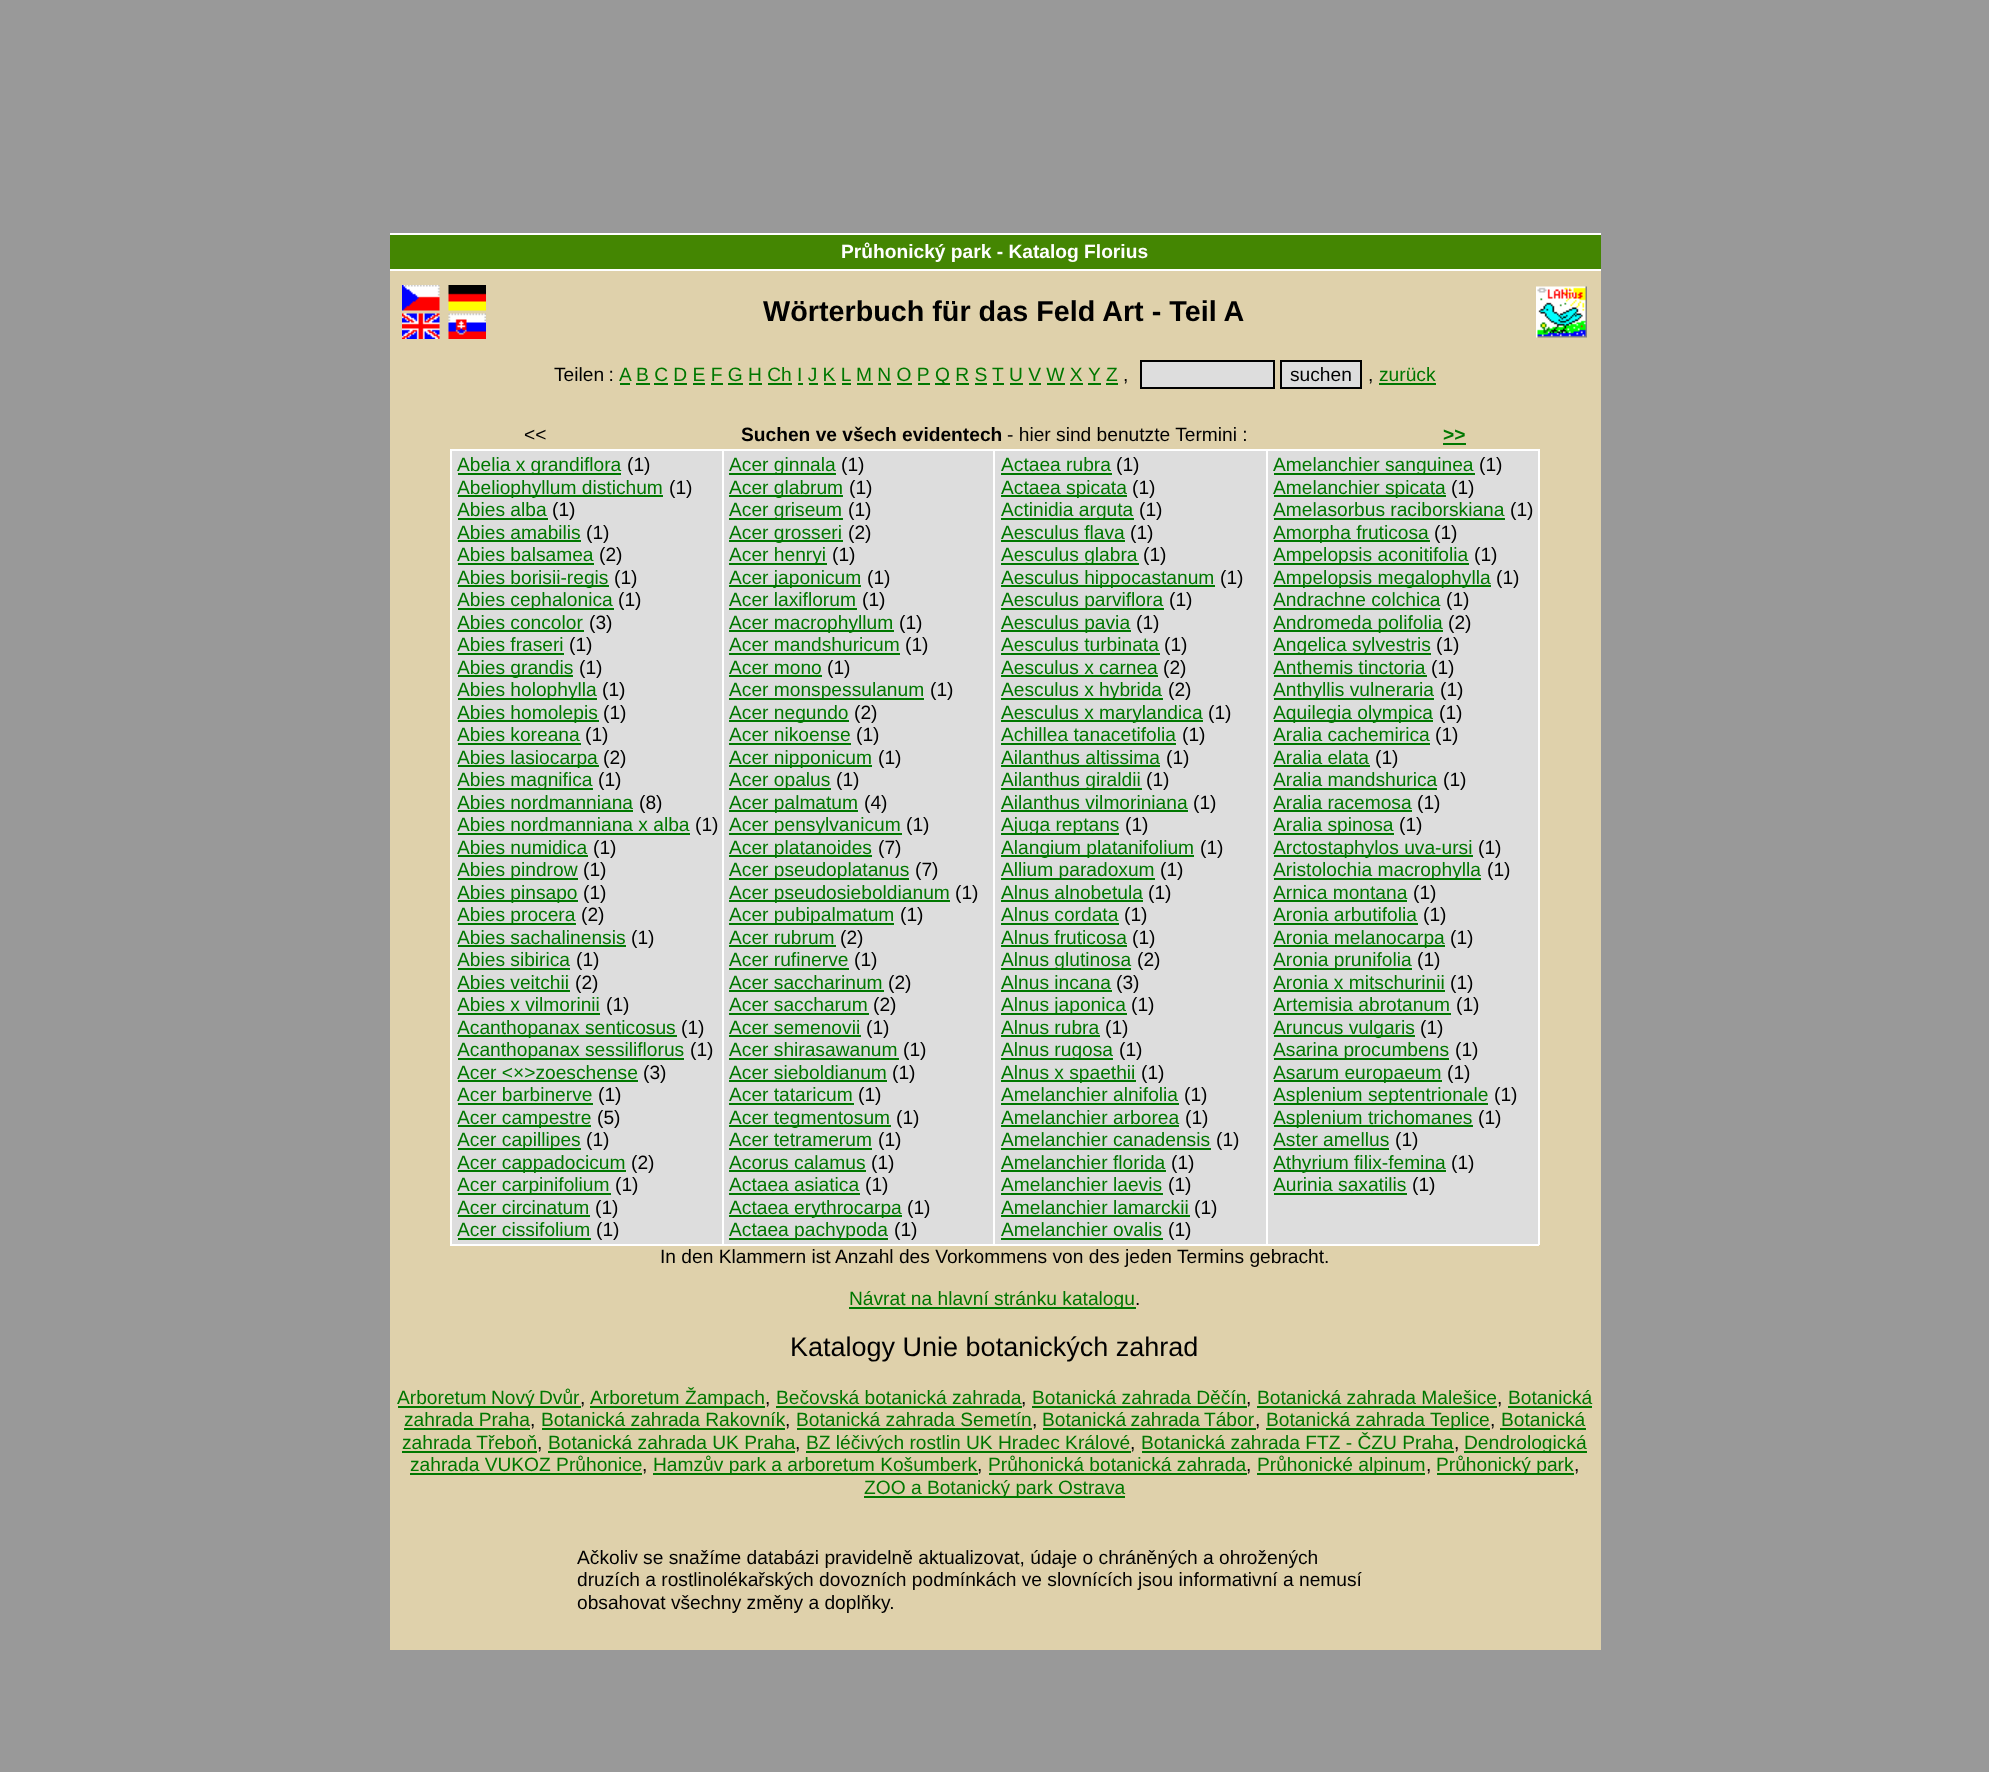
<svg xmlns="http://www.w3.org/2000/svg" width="1989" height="1772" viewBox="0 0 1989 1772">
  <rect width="100%" height="100%" fill="#999"/>
  <path d="M390 271h1211v1379H390z" fill="#dfd1ab"/>
  <path d="M390 235h1211v34H390z" fill="#448602"/>
  <path d="M390 233h1211v2H390z" fill="#fff"/>
  <path d="M390 269h1211v2H390z" fill="#fff"/>
  <image x="402" y="285" width="38" height="26" href="img/1.png"/>
  <image x="402" y="313" width="38" height="26" href="img/2.png"/>
  <image x="448" y="285" width="38" height="26" href="img/3.png"/>
  <image x="448" y="313" width="38" height="26" href="img/4.png"/>
  <image x="1536" y="286" width="51" height="52" href="img/5.png"/>
  <path d="M620 383h10v2H620z" fill="#070"/>
  <path d="M636 383h14v2H636z" fill="#070"/>
  <path d="M857 383h16v2H857z" fill="#070"/>
  <path d="M935 383h15v2H935z" fill="#070"/>
  <path d="M993 383h11v2H993z" fill="#070"/>
  <path d="M1010 383h13v2H1010z" fill="#070"/>
  <path d="M1088 383h13v2H1088z" fill="#070"/>
  <path d="M1106 383h12v2H1106z" fill="#070"/>
  <path d="M654 383h14v2H654z" fill="#070"/>
  <path d="M674 383h13v2H674z" fill="#070"/>
  <path d="M693 383h12v2H693z" fill="#070"/>
  <path d="M711 383h12v2H711z" fill="#070"/>
  <path d="M728 383h15v2H728z" fill="#070"/>
  <path d="M749 383h13v2H749z" fill="#070"/>
  <path d="M768 383h24v2H768z" fill="#070"/>
  <path d="M798 383h5v2H798z" fill="#070"/>
  <path d="M809 383h9v2H809z" fill="#070"/>
  <path d="M824 383h12v2H824z" fill="#070"/>
  <path d="M842 383h9v2H842z" fill="#070"/>
  <path d="M878 383h13v2H878z" fill="#070"/>
  <path d="M897 383h15v2H897z" fill="#070"/>
  <path d="M918 383h12v2H918z" fill="#070"/>
  <path d="M956 383h13v2H956z" fill="#070"/>
  <path d="M975 383h12v2H975z" fill="#070"/>
  <path d="M1029 383h12v2H1029z" fill="#070"/>
  <path d="M1047 383h18v2H1047z" fill="#070"/>
  <path d="M1070 383h13v2H1070z" fill="#070"/>
  <path d="M1141 361h133v27H1141z" fill="#ddd" stroke="#000" stroke-width="2"/>
  <path d="M1281 361h80v27H1281z" fill="#ddd" stroke="#000" stroke-width="2"/>
  <path d="M1379 383h57v2H1379z" fill="#070"/>
  <path d="M1443 443h23v2H1443z" fill="#070"/>
  <path d="M452 451h1086v793H452z" fill="#ddd"/>
  <path d="M1538 449h2v796H1538z" fill="#fff"/>
  <path d="M450 1244h1089v2H450z" fill="#fff"/>
  <path d="M450 449h1088v2H450z" fill="#fff"/>
  <path d="M450 449h2v795H450z" fill="#fff"/>
  <path d="M458 473h163v2H458z" fill="#070"/>
  <path d="M458 495h205v2H458z" fill="#070"/>
  <path d="M458 518h90v2H458z" fill="#070"/>
  <path d="M458 540h123v2H458z" fill="#070"/>
  <path d="M458 563h136v2H458z" fill="#070"/>
  <path d="M458 585h151v2H458z" fill="#070"/>
  <path d="M458 608h156v2H458z" fill="#070"/>
  <path d="M458 630h126v2H458z" fill="#070"/>
  <path d="M458 653h106v2H458z" fill="#070"/>
  <path d="M458 675h115v2H458z" fill="#070"/>
  <path d="M458 698h139v2H458z" fill="#070"/>
  <path d="M458 720h141v2H458z" fill="#070"/>
  <path d="M458 743h123v2H458z" fill="#070"/>
  <path d="M458 765h141v2H458z" fill="#070"/>
  <path d="M458 788h135v2H458z" fill="#070"/>
  <path d="M458 810h175v2H458z" fill="#070"/>
  <path d="M458 833h232v2H458z" fill="#070"/>
  <path d="M458 855h130v2H458z" fill="#070"/>
  <path d="M458 878h120v2H458z" fill="#070"/>
  <path d="M458 900h120v2H458z" fill="#070"/>
  <path d="M458 923h118v2H458z" fill="#070"/>
  <path d="M458 945h168v2H458z" fill="#070"/>
  <path d="M458 968h112v2H458z" fill="#070"/>
  <path d="M458 990h112v2H458z" fill="#070"/>
  <path d="M458 1013h142v2H458z" fill="#070"/>
  <path d="M458 1035h219v2H458z" fill="#070"/>
  <path d="M458 1058h226v2H458z" fill="#070"/>
  <path d="M458 1080h180v2H458z" fill="#070"/>
  <path d="M458 1103h135v2H458z" fill="#070"/>
  <path d="M458 1125h133v2H458z" fill="#070"/>
  <path d="M458 1148h123v2H458z" fill="#070"/>
  <path d="M458 1170h168v2H458z" fill="#070"/>
  <path d="M458 1193h153v2H458z" fill="#070"/>
  <path d="M458 1215h132v2H458z" fill="#070"/>
  <path d="M458 1238h133v2H458z" fill="#070"/>
  <path d="M722 449h2v795H722z" fill="#fff"/>
  <path d="M729 473h107v2H729z" fill="#070"/>
  <path d="M729 495h114v2H729z" fill="#070"/>
  <path d="M729 518h114v2H729z" fill="#070"/>
  <path d="M729 540h114v2H729z" fill="#070"/>
  <path d="M729 563h98v2H729z" fill="#070"/>
  <path d="M729 585h132v2H729z" fill="#070"/>
  <path d="M729 608h128v2H729z" fill="#070"/>
  <path d="M729 630h165v2H729z" fill="#070"/>
  <path d="M729 653h171v2H729z" fill="#070"/>
  <path d="M729 675h93v2H729z" fill="#070"/>
  <path d="M729 698h195v2H729z" fill="#070"/>
  <path d="M729 720h120v2H729z" fill="#070"/>
  <path d="M729 743h122v2H729z" fill="#070"/>
  <path d="M729 765h143v2H729z" fill="#070"/>
  <path d="M729 788h102v2H729z" fill="#070"/>
  <path d="M729 810h129v2H729z" fill="#070"/>
  <path d="M729 833h173v2H729z" fill="#070"/>
  <path d="M729 855h143v2H729z" fill="#070"/>
  <path d="M729 878h180v2H729z" fill="#070"/>
  <path d="M729 900h221v2H729z" fill="#070"/>
  <path d="M729 923h165v2H729z" fill="#070"/>
  <path d="M729 945h107v2H729z" fill="#070"/>
  <path d="M729 968h120v2H729z" fill="#070"/>
  <path d="M729 990h155v2H729z" fill="#070"/>
  <path d="M729 1013h140v2H729z" fill="#070"/>
  <path d="M729 1035h132v2H729z" fill="#070"/>
  <path d="M729 1058h170v2H729z" fill="#070"/>
  <path d="M729 1080h158v2H729z" fill="#070"/>
  <path d="M729 1103h125v2H729z" fill="#070"/>
  <path d="M729 1125h162v2H729z" fill="#070"/>
  <path d="M729 1148h143v2H729z" fill="#070"/>
  <path d="M729 1170h137v2H729z" fill="#070"/>
  <path d="M729 1193h131v2H729z" fill="#070"/>
  <path d="M729 1215h173v2H729z" fill="#070"/>
  <path d="M729 1238h159v2H729z" fill="#070"/>
  <path d="M993 449h2v795H993z" fill="#fff"/>
  <path d="M1001 473h111v2H1001z" fill="#070"/>
  <path d="M1001 495h126v2H1001z" fill="#070"/>
  <path d="M1001 518h133v2H1001z" fill="#070"/>
  <path d="M1001 540h124v2H1001z" fill="#070"/>
  <path d="M1001 563h138v2H1001z" fill="#070"/>
  <path d="M1001 585h214v2H1001z" fill="#070"/>
  <path d="M1001 608h163v2H1001z" fill="#070"/>
  <path d="M1001 630h130v2H1001z" fill="#070"/>
  <path d="M1001 653h159v2H1001z" fill="#070"/>
  <path d="M1001 675h157v2H1001z" fill="#070"/>
  <path d="M1001 698h162v2H1001z" fill="#070"/>
  <path d="M1001 720h202v2H1001z" fill="#070"/>
  <path d="M1001 743h175v2H1001z" fill="#070"/>
  <path d="M1001 765h159v2H1001z" fill="#070"/>
  <path d="M1001 788h141v2H1001z" fill="#070"/>
  <path d="M1001 810h187v2H1001z" fill="#070"/>
  <path d="M1001 833h118v2H1001z" fill="#070"/>
  <path d="M1001 855h193v2H1001z" fill="#070"/>
  <path d="M1001 878h154v2H1001z" fill="#070"/>
  <path d="M1001 900h142v2H1001z" fill="#070"/>
  <path d="M1001 923h118v2H1001z" fill="#070"/>
  <path d="M1001 945h126v2H1001z" fill="#070"/>
  <path d="M1001 968h130v2H1001z" fill="#070"/>
  <path d="M1001 990h111v2H1001z" fill="#070"/>
  <path d="M1001 1013h126v2H1001z" fill="#070"/>
  <path d="M1001 1035h99v2H1001z" fill="#070"/>
  <path d="M1001 1058h112v2H1001z" fill="#070"/>
  <path d="M1001 1080h135v2H1001z" fill="#070"/>
  <path d="M1001 1103h178v2H1001z" fill="#070"/>
  <path d="M1001 1125h178v2H1001z" fill="#070"/>
  <path d="M1001 1148h210v2H1001z" fill="#070"/>
  <path d="M1001 1170h165v2H1001z" fill="#070"/>
  <path d="M1001 1193h162v2H1001z" fill="#070"/>
  <path d="M1001 1215h189v2H1001z" fill="#070"/>
  <path d="M1001 1238h162v2H1001z" fill="#070"/>
  <path d="M1266 449h2v795H1266z" fill="#fff"/>
  <path d="M1274 473h201v2H1274z" fill="#070"/>
  <path d="M1274 495h172v2H1274z" fill="#070"/>
  <path d="M1274 518h231v2H1274z" fill="#070"/>
  <path d="M1274 540h156v2H1274z" fill="#070"/>
  <path d="M1274 563h195v2H1274z" fill="#070"/>
  <path d="M1274 585h217v2H1274z" fill="#070"/>
  <path d="M1274 608h166v2H1274z" fill="#070"/>
  <path d="M1274 630h169v2H1274z" fill="#070"/>
  <path d="M1274 653h157v2H1274z" fill="#070"/>
  <path d="M1274 675h153v2H1274z" fill="#070"/>
  <path d="M1274 698h160v2H1274z" fill="#070"/>
  <path d="M1274 720h159v2H1274z" fill="#070"/>
  <path d="M1274 743h156v2H1274z" fill="#070"/>
  <path d="M1274 765h96v2H1274z" fill="#070"/>
  <path d="M1274 788h163v2H1274z" fill="#070"/>
  <path d="M1274 810h138v2H1274z" fill="#070"/>
  <path d="M1274 833h120v2H1274z" fill="#070"/>
  <path d="M1274 855h199v2H1274z" fill="#070"/>
  <path d="M1274 878h207v2H1274z" fill="#070"/>
  <path d="M1274 900h133v2H1274z" fill="#070"/>
  <path d="M1274 923h144v2H1274z" fill="#070"/>
  <path d="M1274 945h171v2H1274z" fill="#070"/>
  <path d="M1274 968h138v2H1274z" fill="#070"/>
  <path d="M1274 990h171v2H1274z" fill="#070"/>
  <path d="M1274 1013h177v2H1274z" fill="#070"/>
  <path d="M1274 1035h141v2H1274z" fill="#070"/>
  <path d="M1274 1058h175v2H1274z" fill="#070"/>
  <path d="M1274 1080h168v2H1274z" fill="#070"/>
  <path d="M1274 1103h214v2H1274z" fill="#070"/>
  <path d="M1274 1125h199v2H1274z" fill="#070"/>
  <path d="M1274 1148h115v2H1274z" fill="#070"/>
  <path d="M1274 1170h172v2H1274z" fill="#070"/>
  <path d="M1274 1193h133v2H1274z" fill="#070"/>
  <path d="M849 1307h287v2H849z" fill="#070"/>
  <path d="M398 1406h183v2H398z" fill="#070"/>
  <path d="M590 1406h175v2H590z" fill="#070"/>
  <path d="M776 1406h246v2H776z" fill="#070"/>
  <path d="M1032 1406h215v2H1032z" fill="#070"/>
  <path d="M1257 1406h240v2H1257z" fill="#070"/>
  <path d="M1508 1406h84v2H1508z" fill="#070"/>
  <path d="M404 1428h126v2H404z" fill="#070"/>
  <path d="M542 1428h243v2H542z" fill="#070"/>
  <path d="M797 1428h235v2H797z" fill="#070"/>
  <path d="M1043 1428h213v2H1043z" fill="#070"/>
  <path d="M1266 1428h224v2H1266z" fill="#070"/>
  <path d="M1500 1428h86v2H1500z" fill="#070"/>
  <path d="M402 1451h135v2H402z" fill="#070"/>
  <path d="M548 1451h247v2H548z" fill="#070"/>
  <path d="M806 1451h325v2H806z" fill="#070"/>
  <path d="M1142 1451h312v2H1142z" fill="#070"/>
  <path d="M1464 1451h123v2H1464z" fill="#070"/>
  <path d="M410 1473h232v2H410z" fill="#070"/>
  <path d="M653 1473h325v2H653z" fill="#070"/>
  <path d="M989 1473h258v2H989z" fill="#070"/>
  <path d="M1257 1473h168v2H1257z" fill="#070"/>
  <path d="M1437 1473h137v2H1437z" fill="#070"/>
  <path d="M864 1496h261v2H864z" fill="#070"/>
  <text x="841" y="258" font-family="Liberation Sans" font-size="19.2" font-weight="bold" fill="#fff">Průhonický park - Katalog Florius</text>
  <text x="763" y="321" font-family="Liberation Sans" font-size="28.75" font-weight="bold" fill="#000">Wörterbuch für das Feld Art - Teil A</text>
  <text x="554" y="381" word-spacing="-1" font-family="Liberation Sans" font-size="19.2" fill="#000">Teilen :</text>
  <g font-family="Liberation Sans" font-size="19.2" fill="#070">
    <text x="619" y="381">A</text>
    <text x="636" y="381">B C D E F G H Ch I J K L</text>
    <text x="856" y="381">M N O P</text>
    <text x="935" y="381">Q R S</text>
    <text x="992" y="381">T</text>
    <text x="1009" y="381">U V W X</text>
    <text x="1088" y="381">Y</text>
    <text x="1106" y="381">Z</text>
  </g>
  <g font-family="Liberation Sans" font-size="19.2" fill="#000">
    <text x="1123" y="381">,</text>
    <text x="1290" y="381">suchen</text>
    <text x="1368" y="381">,</text>
  </g>
  <text x="1379" y="381" font-family="Liberation Sans" font-size="19.2" fill="#070">zurück</text>
  <text x="524" y="441" font-family="Liberation Sans" font-size="19.2" fill="#000">&lt;&lt;</text>
  <text x="741" y="441" font-family="Liberation Sans" font-size="19.2" font-weight="bold" fill="#000">Suchen ve všech evidentech</text>
  <text x="1007" y="441" font-family="Liberation Sans" font-size="19.2" fill="#000">- hier sind benutzte Termini :</text>
  <text x="1443" y="441" font-family="Liberation Sans" font-size="19.2" font-weight="bold" fill="#070">&gt;&gt;</text>
  <text x="457" y="471" font-family="Liberation Sans" font-size="19.2" fill="#070">Abelia x grandiflora</text>
  <text x="627" y="471" font-family="Liberation Sans" font-size="19.2" fill="#000">(1)</text>
  <text x="457" y="494" font-family="Liberation Sans" font-size="19.2" fill="#070">Abeliophyllum distichum</text>
  <text x="669" y="494" font-family="Liberation Sans" font-size="19.2" fill="#000">(1)</text>
  <text x="457" y="516" font-family="Liberation Sans" font-size="19.2" fill="#070">Abies alba</text>
  <text x="552" y="516" font-family="Liberation Sans" font-size="19.2" fill="#000">(1)</text>
  <text x="457" y="539" font-family="Liberation Sans" font-size="19.2" fill="#070">Abies amabilis</text>
  <text x="586" y="539" font-family="Liberation Sans" font-size="19.2" fill="#000">(1)</text>
  <text x="457" y="561" font-family="Liberation Sans" font-size="19.2" fill="#070">Abies balsamea</text>
  <text x="599" y="561" font-family="Liberation Sans" font-size="19.2" fill="#000">(2)</text>
  <text x="457" y="584" font-family="Liberation Sans" font-size="19.2" fill="#070">Abies borisii-regis</text>
  <text x="614" y="584" font-family="Liberation Sans" font-size="19.2" fill="#000">(1)</text>
  <text x="457" y="606" font-family="Liberation Sans" font-size="19.2" fill="#070">Abies cephalonica</text>
  <text x="618" y="606" font-family="Liberation Sans" font-size="19.2" fill="#000">(1)</text>
  <text x="457" y="629" font-family="Liberation Sans" font-size="19.2" fill="#070">Abies concolor</text>
  <text x="589" y="629" font-family="Liberation Sans" font-size="19.2" fill="#000">(3)</text>
  <text x="457" y="651" font-family="Liberation Sans" font-size="19.2" fill="#070">Abies fraseri</text>
  <text x="569" y="651" font-family="Liberation Sans" font-size="19.2" fill="#000">(1)</text>
  <text x="457" y="674" font-family="Liberation Sans" font-size="19.2" fill="#070">Abies grandis</text>
  <text x="579" y="674" font-family="Liberation Sans" font-size="19.2" fill="#000">(1)</text>
  <text x="457" y="696" font-family="Liberation Sans" font-size="19.2" fill="#070">Abies holophylla</text>
  <text x="602" y="696" font-family="Liberation Sans" font-size="19.2" fill="#000">(1)</text>
  <text x="457" y="719" font-family="Liberation Sans" font-size="19.2" fill="#070">Abies homolepis</text>
  <text x="603" y="719" font-family="Liberation Sans" font-size="19.2" fill="#000">(1)</text>
  <text x="457" y="741" font-family="Liberation Sans" font-size="19.2" fill="#070">Abies koreana</text>
  <text x="585" y="741" font-family="Liberation Sans" font-size="19.2" fill="#000">(1)</text>
  <text x="457" y="764" font-family="Liberation Sans" font-size="19.2" fill="#070">Abies lasiocarpa</text>
  <text x="603" y="764" font-family="Liberation Sans" font-size="19.2" fill="#000">(2)</text>
  <text x="457" y="786" font-family="Liberation Sans" font-size="19.2" fill="#070">Abies magnifica</text>
  <text x="598" y="786" font-family="Liberation Sans" font-size="19.2" fill="#000">(1)</text>
  <text x="457" y="809" font-family="Liberation Sans" font-size="19.2" fill="#070">Abies nordmanniana</text>
  <text x="639" y="809" font-family="Liberation Sans" font-size="19.2" fill="#000">(8)</text>
  <text x="457" y="831" font-family="Liberation Sans" font-size="19.2" fill="#070">Abies nordmanniana x alba</text>
  <text x="695" y="831" font-family="Liberation Sans" font-size="19.2" fill="#000">(1)</text>
  <text x="457" y="854" font-family="Liberation Sans" font-size="19.2" fill="#070">Abies numidica</text>
  <text x="593" y="854" font-family="Liberation Sans" font-size="19.2" fill="#000">(1)</text>
  <text x="457" y="876" font-family="Liberation Sans" font-size="19.2" fill="#070">Abies pindrow</text>
  <text x="583" y="876" font-family="Liberation Sans" font-size="19.2" fill="#000">(1)</text>
  <text x="457" y="899" font-family="Liberation Sans" font-size="19.2" fill="#070">Abies pinsapo</text>
  <text x="583" y="899" font-family="Liberation Sans" font-size="19.2" fill="#000">(1)</text>
  <text x="457" y="921" font-family="Liberation Sans" font-size="19.2" fill="#070">Abies procera</text>
  <text x="581" y="921" font-family="Liberation Sans" font-size="19.2" fill="#000">(2)</text>
  <text x="457" y="944" font-family="Liberation Sans" font-size="19.2" fill="#070">Abies sachalinensis</text>
  <text x="631" y="944" font-family="Liberation Sans" font-size="19.2" fill="#000">(1)</text>
  <text x="457" y="966" font-family="Liberation Sans" font-size="19.2" fill="#070">Abies sibirica</text>
  <text x="576" y="966" font-family="Liberation Sans" font-size="19.2" fill="#000">(1)</text>
  <text x="457" y="989" font-family="Liberation Sans" font-size="19.2" fill="#070">Abies veitchii</text>
  <text x="575" y="989" font-family="Liberation Sans" font-size="19.2" fill="#000">(2)</text>
  <text x="457" y="1011" font-family="Liberation Sans" font-size="19.2" fill="#070">Abies x vilmorinii</text>
  <text x="606" y="1011" font-family="Liberation Sans" font-size="19.2" fill="#000">(1)</text>
  <text x="457" y="1034" font-family="Liberation Sans" font-size="19.2" fill="#070">Acanthopanax senticosus</text>
  <text x="681" y="1034" font-family="Liberation Sans" font-size="19.2" fill="#000">(1)</text>
  <text x="457" y="1056" font-family="Liberation Sans" font-size="19.2" fill="#070">Acanthopanax sessiliflorus</text>
  <text x="690" y="1056" font-family="Liberation Sans" font-size="19.2" fill="#000">(1)</text>
  <text x="457" y="1079" font-family="Liberation Sans" font-size="19.2" fill="#070">Acer &lt;×&gt;zoeschense</text>
  <text x="643" y="1079" font-family="Liberation Sans" font-size="19.2" fill="#000">(3)</text>
  <text x="457" y="1101" font-family="Liberation Sans" font-size="19.2" fill="#070">Acer barbinerve</text>
  <text x="598" y="1101" font-family="Liberation Sans" font-size="19.2" fill="#000">(1)</text>
  <text x="457" y="1124" font-family="Liberation Sans" font-size="19.2" fill="#070">Acer campestre</text>
  <text x="597" y="1124" font-family="Liberation Sans" font-size="19.2" fill="#000">(5)</text>
  <text x="457" y="1146" font-family="Liberation Sans" font-size="19.2" fill="#070">Acer capillipes</text>
  <text x="586" y="1146" font-family="Liberation Sans" font-size="19.2" fill="#000">(1)</text>
  <text x="457" y="1169" font-family="Liberation Sans" font-size="19.2" fill="#070">Acer cappadocicum</text>
  <text x="631" y="1169" font-family="Liberation Sans" font-size="19.2" fill="#000">(2)</text>
  <text x="457" y="1191" font-family="Liberation Sans" font-size="19.2" fill="#070">Acer carpinifolium</text>
  <text x="615" y="1191" font-family="Liberation Sans" font-size="19.2" fill="#000">(1)</text>
  <text x="457" y="1214" font-family="Liberation Sans" font-size="19.2" fill="#070">Acer circinatum</text>
  <text x="595" y="1214" font-family="Liberation Sans" font-size="19.2" fill="#000">(1)</text>
  <text x="457" y="1236" font-family="Liberation Sans" font-size="19.2" fill="#070">Acer cissifolium</text>
  <text x="596" y="1236" font-family="Liberation Sans" font-size="19.2" fill="#000">(1)</text>
  <text x="729" y="471" font-family="Liberation Sans" font-size="19.2" fill="#070">Acer ginnala</text>
  <text x="841" y="471" font-family="Liberation Sans" font-size="19.2" fill="#000">(1)</text>
  <text x="729" y="494" font-family="Liberation Sans" font-size="19.2" fill="#070">Acer glabrum</text>
  <text x="849" y="494" font-family="Liberation Sans" font-size="19.2" fill="#000">(1)</text>
  <text x="729" y="516" font-family="Liberation Sans" font-size="19.2" fill="#070">Acer griseum</text>
  <text x="848" y="516" font-family="Liberation Sans" font-size="19.2" fill="#000">(1)</text>
  <text x="729" y="539" font-family="Liberation Sans" font-size="19.2" fill="#070">Acer grosseri</text>
  <text x="848" y="539" font-family="Liberation Sans" font-size="19.2" fill="#000">(2)</text>
  <text x="729" y="561" font-family="Liberation Sans" font-size="19.2" fill="#070">Acer henryi</text>
  <text x="832" y="561" font-family="Liberation Sans" font-size="19.2" fill="#000">(1)</text>
  <text x="729" y="584" font-family="Liberation Sans" font-size="19.2" fill="#070">Acer japonicum</text>
  <text x="867" y="584" font-family="Liberation Sans" font-size="19.2" fill="#000">(1)</text>
  <text x="729" y="606" font-family="Liberation Sans" font-size="19.2" fill="#070">Acer laxiflorum</text>
  <text x="862" y="606" font-family="Liberation Sans" font-size="19.2" fill="#000">(1)</text>
  <text x="729" y="629" font-family="Liberation Sans" font-size="19.2" fill="#070">Acer macrophyllum</text>
  <text x="899" y="629" font-family="Liberation Sans" font-size="19.2" fill="#000">(1)</text>
  <text x="729" y="651" font-family="Liberation Sans" font-size="19.2" fill="#070">Acer mandshuricum</text>
  <text x="905" y="651" font-family="Liberation Sans" font-size="19.2" fill="#000">(1)</text>
  <text x="729" y="674" font-family="Liberation Sans" font-size="19.2" fill="#070">Acer mono</text>
  <text x="827" y="674" font-family="Liberation Sans" font-size="19.2" fill="#000">(1)</text>
  <text x="729" y="696" font-family="Liberation Sans" font-size="19.2" fill="#070">Acer monspessulanum</text>
  <text x="930" y="696" font-family="Liberation Sans" font-size="19.2" fill="#000">(1)</text>
  <text x="729" y="719" font-family="Liberation Sans" font-size="19.2" fill="#070">Acer negundo</text>
  <text x="854" y="719" font-family="Liberation Sans" font-size="19.2" fill="#000">(2)</text>
  <text x="729" y="741" font-family="Liberation Sans" font-size="19.2" fill="#070">Acer nikoense</text>
  <text x="856" y="741" font-family="Liberation Sans" font-size="19.2" fill="#000">(1)</text>
  <text x="729" y="764" font-family="Liberation Sans" font-size="19.2" fill="#070">Acer nipponicum</text>
  <text x="878" y="764" font-family="Liberation Sans" font-size="19.2" fill="#000">(1)</text>
  <text x="729" y="786" font-family="Liberation Sans" font-size="19.2" fill="#070">Acer opalus</text>
  <text x="836" y="786" font-family="Liberation Sans" font-size="19.2" fill="#000">(1)</text>
  <text x="729" y="809" font-family="Liberation Sans" font-size="19.2" fill="#070">Acer palmatum</text>
  <text x="864" y="809" font-family="Liberation Sans" font-size="19.2" fill="#000">(4)</text>
  <text x="729" y="831" font-family="Liberation Sans" font-size="19.2" fill="#070">Acer pensylvanicum</text>
  <text x="906" y="831" font-family="Liberation Sans" font-size="19.2" fill="#000">(1)</text>
  <text x="729" y="854" font-family="Liberation Sans" font-size="19.2" fill="#070">Acer platanoides</text>
  <text x="878" y="854" font-family="Liberation Sans" font-size="19.2" fill="#000">(7)</text>
  <text x="729" y="876" font-family="Liberation Sans" font-size="19.2" fill="#070">Acer pseudoplatanus</text>
  <text x="915" y="876" font-family="Liberation Sans" font-size="19.2" fill="#000">(7)</text>
  <text x="729" y="899" font-family="Liberation Sans" font-size="19.2" fill="#070">Acer pseudosieboldianum</text>
  <text x="955" y="899" font-family="Liberation Sans" font-size="19.2" fill="#000">(1)</text>
  <text x="729" y="921" font-family="Liberation Sans" font-size="19.2" fill="#070">Acer pubipalmatum</text>
  <text x="900" y="921" font-family="Liberation Sans" font-size="19.2" fill="#000">(1)</text>
  <text x="729" y="944" font-family="Liberation Sans" font-size="19.2" fill="#070">Acer rubrum</text>
  <text x="840" y="944" font-family="Liberation Sans" font-size="19.2" fill="#000">(2)</text>
  <text x="729" y="966" font-family="Liberation Sans" font-size="19.2" fill="#070">Acer rufinerve</text>
  <text x="854" y="966" font-family="Liberation Sans" font-size="19.2" fill="#000">(1)</text>
  <text x="729" y="989" font-family="Liberation Sans" font-size="19.2" fill="#070">Acer saccharinum</text>
  <text x="888" y="989" font-family="Liberation Sans" font-size="19.2" fill="#000">(2)</text>
  <text x="729" y="1011" font-family="Liberation Sans" font-size="19.2" fill="#070">Acer saccharum</text>
  <text x="873" y="1011" font-family="Liberation Sans" font-size="19.2" fill="#000">(2)</text>
  <text x="729" y="1034" font-family="Liberation Sans" font-size="19.2" fill="#070">Acer semenovii</text>
  <text x="866" y="1034" font-family="Liberation Sans" font-size="19.2" fill="#000">(1)</text>
  <text x="729" y="1056" font-family="Liberation Sans" font-size="19.2" fill="#070">Acer shirasawanum</text>
  <text x="903" y="1056" font-family="Liberation Sans" font-size="19.2" fill="#000">(1)</text>
  <text x="729" y="1079" font-family="Liberation Sans" font-size="19.2" fill="#070">Acer sieboldianum</text>
  <text x="892" y="1079" font-family="Liberation Sans" font-size="19.2" fill="#000">(1)</text>
  <text x="729" y="1101" font-family="Liberation Sans" font-size="19.2" fill="#070">Acer tataricum</text>
  <text x="858" y="1101" font-family="Liberation Sans" font-size="19.2" fill="#000">(1)</text>
  <text x="729" y="1124" font-family="Liberation Sans" font-size="19.2" fill="#070">Acer tegmentosum</text>
  <text x="896" y="1124" font-family="Liberation Sans" font-size="19.2" fill="#000">(1)</text>
  <text x="729" y="1146" font-family="Liberation Sans" font-size="19.2" fill="#070">Acer tetramerum</text>
  <text x="878" y="1146" font-family="Liberation Sans" font-size="19.2" fill="#000">(1)</text>
  <text x="729" y="1169" font-family="Liberation Sans" font-size="19.2" fill="#070">Acorus calamus</text>
  <text x="871" y="1169" font-family="Liberation Sans" font-size="19.2" fill="#000">(1)</text>
  <text x="729" y="1191" font-family="Liberation Sans" font-size="19.2" fill="#070">Actaea asiatica</text>
  <text x="865" y="1191" font-family="Liberation Sans" font-size="19.2" fill="#000">(1)</text>
  <text x="729" y="1214" font-family="Liberation Sans" font-size="19.2" fill="#070">Actaea erythrocarpa</text>
  <text x="907" y="1214" font-family="Liberation Sans" font-size="19.2" fill="#000">(1)</text>
  <text x="729" y="1236" font-family="Liberation Sans" font-size="19.2" fill="#070">Actaea pachypoda</text>
  <text x="894" y="1236" font-family="Liberation Sans" font-size="19.2" fill="#000">(1)</text>
  <text x="1001" y="471" font-family="Liberation Sans" font-size="19.2" fill="#070">Actaea rubra</text>
  <text x="1116" y="471" font-family="Liberation Sans" font-size="19.2" fill="#000">(1)</text>
  <text x="1001" y="494" font-family="Liberation Sans" font-size="19.2" fill="#070">Actaea spicata</text>
  <text x="1132" y="494" font-family="Liberation Sans" font-size="19.2" fill="#000">(1)</text>
  <text x="1001" y="516" font-family="Liberation Sans" font-size="19.2" fill="#070">Actinidia arguta</text>
  <text x="1139" y="516" font-family="Liberation Sans" font-size="19.2" fill="#000">(1)</text>
  <text x="1001" y="539" font-family="Liberation Sans" font-size="19.2" fill="#070">Aesculus flava</text>
  <text x="1130" y="539" font-family="Liberation Sans" font-size="19.2" fill="#000">(1)</text>
  <text x="1001" y="561" font-family="Liberation Sans" font-size="19.2" fill="#070">Aesculus glabra</text>
  <text x="1143" y="561" font-family="Liberation Sans" font-size="19.2" fill="#000">(1)</text>
  <text x="1001" y="584" font-family="Liberation Sans" font-size="19.2" fill="#070">Aesculus hippocastanum</text>
  <text x="1220" y="584" font-family="Liberation Sans" font-size="19.2" fill="#000">(1)</text>
  <text x="1001" y="606" font-family="Liberation Sans" font-size="19.2" fill="#070">Aesculus parviflora</text>
  <text x="1169" y="606" font-family="Liberation Sans" font-size="19.2" fill="#000">(1)</text>
  <text x="1001" y="629" font-family="Liberation Sans" font-size="19.2" fill="#070">Aesculus pavia</text>
  <text x="1136" y="629" font-family="Liberation Sans" font-size="19.2" fill="#000">(1)</text>
  <text x="1001" y="651" font-family="Liberation Sans" font-size="19.2" fill="#070">Aesculus turbinata</text>
  <text x="1164" y="651" font-family="Liberation Sans" font-size="19.2" fill="#000">(1)</text>
  <text x="1001" y="674" font-family="Liberation Sans" font-size="19.2" fill="#070">Aesculus x carnea</text>
  <text x="1163" y="674" font-family="Liberation Sans" font-size="19.2" fill="#000">(2)</text>
  <text x="1001" y="696" font-family="Liberation Sans" font-size="19.2" fill="#070">Aesculus x hybrida</text>
  <text x="1168" y="696" font-family="Liberation Sans" font-size="19.2" fill="#000">(2)</text>
  <text x="1001" y="719" font-family="Liberation Sans" font-size="19.2" fill="#070">Aesculus x marylandica</text>
  <text x="1208" y="719" font-family="Liberation Sans" font-size="19.2" fill="#000">(1)</text>
  <text x="1001" y="741" font-family="Liberation Sans" font-size="19.2" fill="#070">Achillea tanacetifolia</text>
  <text x="1182" y="741" font-family="Liberation Sans" font-size="19.2" fill="#000">(1)</text>
  <text x="1001" y="764" font-family="Liberation Sans" font-size="19.2" fill="#070">Ailanthus altissima</text>
  <text x="1166" y="764" font-family="Liberation Sans" font-size="19.2" fill="#000">(1)</text>
  <text x="1001" y="786" font-family="Liberation Sans" font-size="19.2" fill="#070">Ailanthus giraldii</text>
  <text x="1146" y="786" font-family="Liberation Sans" font-size="19.2" fill="#000">(1)</text>
  <text x="1001" y="809" font-family="Liberation Sans" font-size="19.2" fill="#070">Ailanthus vilmoriniana</text>
  <text x="1193" y="809" font-family="Liberation Sans" font-size="19.2" fill="#000">(1)</text>
  <text x="1001" y="831" font-family="Liberation Sans" font-size="19.2" fill="#070">Ajuga reptans</text>
  <text x="1125" y="831" font-family="Liberation Sans" font-size="19.2" fill="#000">(1)</text>
  <text x="1001" y="854" font-family="Liberation Sans" font-size="19.2" fill="#070">Alangium platanifolium</text>
  <text x="1200" y="854" font-family="Liberation Sans" font-size="19.2" fill="#000">(1)</text>
  <text x="1001" y="876" font-family="Liberation Sans" font-size="19.2" fill="#070">Allium paradoxum</text>
  <text x="1160" y="876" font-family="Liberation Sans" font-size="19.2" fill="#000">(1)</text>
  <text x="1001" y="899" font-family="Liberation Sans" font-size="19.2" fill="#070">Alnus alnobetula</text>
  <text x="1148" y="899" font-family="Liberation Sans" font-size="19.2" fill="#000">(1)</text>
  <text x="1001" y="921" font-family="Liberation Sans" font-size="19.2" fill="#070">Alnus cordata</text>
  <text x="1124" y="921" font-family="Liberation Sans" font-size="19.2" fill="#000">(1)</text>
  <text x="1001" y="944" font-family="Liberation Sans" font-size="19.2" fill="#070">Alnus fruticosa</text>
  <text x="1132" y="944" font-family="Liberation Sans" font-size="19.2" fill="#000">(1)</text>
  <text x="1001" y="966" font-family="Liberation Sans" font-size="19.2" fill="#070">Alnus glutinosa</text>
  <text x="1137" y="966" font-family="Liberation Sans" font-size="19.2" fill="#000">(2)</text>
  <text x="1001" y="989" font-family="Liberation Sans" font-size="19.2" fill="#070">Alnus incana</text>
  <text x="1116" y="989" font-family="Liberation Sans" font-size="19.2" fill="#000">(3)</text>
  <text x="1001" y="1011" font-family="Liberation Sans" font-size="19.2" fill="#070">Alnus japonica</text>
  <text x="1131" y="1011" font-family="Liberation Sans" font-size="19.2" fill="#000">(1)</text>
  <text x="1001" y="1034" font-family="Liberation Sans" font-size="19.2" fill="#070">Alnus rubra</text>
  <text x="1105" y="1034" font-family="Liberation Sans" font-size="19.2" fill="#000">(1)</text>
  <text x="1001" y="1056" font-family="Liberation Sans" font-size="19.2" fill="#070">Alnus rugosa</text>
  <text x="1119" y="1056" font-family="Liberation Sans" font-size="19.2" fill="#000">(1)</text>
  <text x="1001" y="1079" font-family="Liberation Sans" font-size="19.2" fill="#070">Alnus x spaethii</text>
  <text x="1141" y="1079" font-family="Liberation Sans" font-size="19.2" fill="#000">(1)</text>
  <text x="1001" y="1101" font-family="Liberation Sans" font-size="19.2" fill="#070">Amelanchier alnifolia</text>
  <text x="1184" y="1101" font-family="Liberation Sans" font-size="19.2" fill="#000">(1)</text>
  <text x="1001" y="1124" font-family="Liberation Sans" font-size="19.2" fill="#070">Amelanchier arborea</text>
  <text x="1185" y="1124" font-family="Liberation Sans" font-size="19.2" fill="#000">(1)</text>
  <text x="1001" y="1146" font-family="Liberation Sans" font-size="19.2" fill="#070">Amelanchier canadensis</text>
  <text x="1216" y="1146" font-family="Liberation Sans" font-size="19.2" fill="#000">(1)</text>
  <text x="1001" y="1169" font-family="Liberation Sans" font-size="19.2" fill="#070">Amelanchier florida</text>
  <text x="1171" y="1169" font-family="Liberation Sans" font-size="19.2" fill="#000">(1)</text>
  <text x="1001" y="1191" font-family="Liberation Sans" font-size="19.2" fill="#070">Amelanchier laevis</text>
  <text x="1168" y="1191" font-family="Liberation Sans" font-size="19.2" fill="#000">(1)</text>
  <text x="1001" y="1214" font-family="Liberation Sans" font-size="19.2" fill="#070">Amelanchier lamarckii</text>
  <text x="1194" y="1214" font-family="Liberation Sans" font-size="19.2" fill="#000">(1)</text>
  <text x="1001" y="1236" font-family="Liberation Sans" font-size="19.2" fill="#070">Amelanchier ovalis</text>
  <text x="1168" y="1236" font-family="Liberation Sans" font-size="19.2" fill="#000">(1)</text>
  <text x="1273" y="471" font-family="Liberation Sans" font-size="19.2" fill="#070">Amelanchier sanguinea</text>
  <text x="1479" y="471" font-family="Liberation Sans" font-size="19.2" fill="#000">(1)</text>
  <text x="1273" y="494" font-family="Liberation Sans" font-size="19.2" fill="#070">Amelanchier spicata</text>
  <text x="1451" y="494" font-family="Liberation Sans" font-size="19.2" fill="#000">(1)</text>
  <text x="1273" y="516" font-family="Liberation Sans" font-size="19.2" fill="#070">Amelasorbus raciborskiana</text>
  <text x="1510" y="516" font-family="Liberation Sans" font-size="19.2" fill="#000">(1)</text>
  <text x="1273" y="539" font-family="Liberation Sans" font-size="19.2" fill="#070">Amorpha fruticosa</text>
  <text x="1434" y="539" font-family="Liberation Sans" font-size="19.2" fill="#000">(1)</text>
  <text x="1273" y="561" font-family="Liberation Sans" font-size="19.2" fill="#070">Ampelopsis aconitifolia</text>
  <text x="1474" y="561" font-family="Liberation Sans" font-size="19.2" fill="#000">(1)</text>
  <text x="1273" y="584" font-family="Liberation Sans" font-size="19.2" fill="#070">Ampelopsis megalophylla</text>
  <text x="1496" y="584" font-family="Liberation Sans" font-size="19.2" fill="#000">(1)</text>
  <text x="1273" y="606" font-family="Liberation Sans" font-size="19.2" fill="#070">Andrachne colchica</text>
  <text x="1446" y="606" font-family="Liberation Sans" font-size="19.2" fill="#000">(1)</text>
  <text x="1273" y="629" font-family="Liberation Sans" font-size="19.2" fill="#070">Andromeda polifolia</text>
  <text x="1448" y="629" font-family="Liberation Sans" font-size="19.2" fill="#000">(2)</text>
  <text x="1273" y="651" font-family="Liberation Sans" font-size="19.2" fill="#070">Angelica sylvestris</text>
  <text x="1436" y="651" font-family="Liberation Sans" font-size="19.2" fill="#000">(1)</text>
  <text x="1273" y="674" font-family="Liberation Sans" font-size="19.2" fill="#070">Anthemis tinctoria</text>
  <text x="1431" y="674" font-family="Liberation Sans" font-size="19.2" fill="#000">(1)</text>
  <text x="1273" y="696" font-family="Liberation Sans" font-size="19.2" fill="#070">Anthyllis vulneraria</text>
  <text x="1440" y="696" font-family="Liberation Sans" font-size="19.2" fill="#000">(1)</text>
  <text x="1273" y="719" font-family="Liberation Sans" font-size="19.2" fill="#070">Aquilegia olympica</text>
  <text x="1439" y="719" font-family="Liberation Sans" font-size="19.2" fill="#000">(1)</text>
  <text x="1273" y="741" font-family="Liberation Sans" font-size="19.2" fill="#070">Aralia cachemirica</text>
  <text x="1435" y="741" font-family="Liberation Sans" font-size="19.2" fill="#000">(1)</text>
  <text x="1273" y="764" font-family="Liberation Sans" font-size="19.2" fill="#070">Aralia elata</text>
  <text x="1375" y="764" font-family="Liberation Sans" font-size="19.2" fill="#000">(1)</text>
  <text x="1273" y="786" font-family="Liberation Sans" font-size="19.2" fill="#070">Aralia mandshurica</text>
  <text x="1443" y="786" font-family="Liberation Sans" font-size="19.2" fill="#000">(1)</text>
  <text x="1273" y="809" font-family="Liberation Sans" font-size="19.2" fill="#070">Aralia racemosa</text>
  <text x="1417" y="809" font-family="Liberation Sans" font-size="19.2" fill="#000">(1)</text>
  <text x="1273" y="831" font-family="Liberation Sans" font-size="19.2" fill="#070">Aralia spinosa</text>
  <text x="1399" y="831" font-family="Liberation Sans" font-size="19.2" fill="#000">(1)</text>
  <text x="1273" y="854" font-family="Liberation Sans" font-size="19.2" fill="#070">Arctostaphylos uva-ursi</text>
  <text x="1478" y="854" font-family="Liberation Sans" font-size="19.2" fill="#000">(1)</text>
  <text x="1273" y="876" font-family="Liberation Sans" font-size="19.2" fill="#070">Aristolochia macrophylla</text>
  <text x="1487" y="876" font-family="Liberation Sans" font-size="19.2" fill="#000">(1)</text>
  <text x="1273" y="899" font-family="Liberation Sans" font-size="19.2" fill="#070">Arnica montana</text>
  <text x="1413" y="899" font-family="Liberation Sans" font-size="19.2" fill="#000">(1)</text>
  <text x="1273" y="921" font-family="Liberation Sans" font-size="19.2" fill="#070">Aronia arbutifolia</text>
  <text x="1423" y="921" font-family="Liberation Sans" font-size="19.2" fill="#000">(1)</text>
  <text x="1273" y="944" font-family="Liberation Sans" font-size="19.2" fill="#070">Aronia melanocarpa</text>
  <text x="1450" y="944" font-family="Liberation Sans" font-size="19.2" fill="#000">(1)</text>
  <text x="1273" y="966" font-family="Liberation Sans" font-size="19.2" fill="#070">Aronia prunifolia</text>
  <text x="1417" y="966" font-family="Liberation Sans" font-size="19.2" fill="#000">(1)</text>
  <text x="1273" y="989" font-family="Liberation Sans" font-size="19.2" fill="#070">Aronia x mitschurinii</text>
  <text x="1450" y="989" font-family="Liberation Sans" font-size="19.2" fill="#000">(1)</text>
  <text x="1273" y="1011" font-family="Liberation Sans" font-size="19.2" fill="#070">Artemisia abrotanum</text>
  <text x="1456" y="1011" font-family="Liberation Sans" font-size="19.2" fill="#000">(1)</text>
  <text x="1273" y="1034" font-family="Liberation Sans" font-size="19.2" fill="#070">Aruncus vulgaris</text>
  <text x="1420" y="1034" font-family="Liberation Sans" font-size="19.2" fill="#000">(1)</text>
  <text x="1273" y="1056" font-family="Liberation Sans" font-size="19.2" fill="#070">Asarina procumbens</text>
  <text x="1455" y="1056" font-family="Liberation Sans" font-size="19.2" fill="#000">(1)</text>
  <text x="1273" y="1079" font-family="Liberation Sans" font-size="19.2" fill="#070">Asarum europaeum</text>
  <text x="1447" y="1079" font-family="Liberation Sans" font-size="19.2" fill="#000">(1)</text>
  <text x="1273" y="1101" font-family="Liberation Sans" font-size="19.2" fill="#070">Asplenium septentrionale</text>
  <text x="1494" y="1101" font-family="Liberation Sans" font-size="19.2" fill="#000">(1)</text>
  <text x="1273" y="1124" font-family="Liberation Sans" font-size="19.2" fill="#070">Asplenium trichomanes</text>
  <text x="1478" y="1124" font-family="Liberation Sans" font-size="19.2" fill="#000">(1)</text>
  <text x="1273" y="1146" font-family="Liberation Sans" font-size="19.2" fill="#070">Aster amellus</text>
  <text x="1395" y="1146" font-family="Liberation Sans" font-size="19.2" fill="#000">(1)</text>
  <text x="1273" y="1169" font-family="Liberation Sans" font-size="19.2" fill="#070">Athyrium filix-femina</text>
  <text x="1451" y="1169" font-family="Liberation Sans" font-size="19.2" fill="#000">(1)</text>
  <text x="1273" y="1191" font-family="Liberation Sans" font-size="19.2" fill="#070">Aurinia saxatilis</text>
  <g font-family="Liberation Sans" font-size="19.2" fill="#000">
    <text x="1412" y="1191">(1)</text>
    <text x="660" y="1263">In den Klammern ist Anzahl des Vorkommens von des jeden Termins gebracht.</text>
  </g>
  <text x="849" y="1305" font-family="Liberation Sans" font-size="19.2" fill="#070">Návrat na hlavní stránku katalogu</text>
  <text x="1135" y="1305" font-family="Liberation Sans" font-size="19.2" fill="#000">.</text>
  <text x="790" y="1356" font-family="Liberation Sans" font-size="27" fill="#000">Katalogy Unie botanických zahrad</text>
  <text x="397" y="1404" word-spacing="-1" font-family="Liberation Sans" font-size="19.2" fill="#070">Arboretum Nový Dvůr</text>
  <text x="580" y="1404" font-family="Liberation Sans" font-size="19.2" fill="#000">,</text>
  <text x="590" y="1404" font-family="Liberation Sans" font-size="19.2" fill="#070">Arboretum Žampach</text>
  <text x="765" y="1404" font-family="Liberation Sans" font-size="19.2" fill="#000">,</text>
  <text x="776" y="1404" font-family="Liberation Sans" font-size="19.2" fill="#070">Bečovská botanická zahrada</text>
  <text x="1021" y="1404" font-family="Liberation Sans" font-size="19.2" fill="#000">,</text>
  <text x="1032" y="1404" font-family="Liberation Sans" font-size="19.2" fill="#070">Botanická zahrada Děčín</text>
  <text x="1246" y="1404" font-family="Liberation Sans" font-size="19.2" fill="#000">,</text>
  <text x="1257" y="1404" font-family="Liberation Sans" font-size="19.2" fill="#070">Botanická zahrada Malešice</text>
  <text x="1497" y="1404" font-family="Liberation Sans" font-size="19.2" fill="#000">,</text>
  <g font-family="Liberation Sans" font-size="19.2" fill="#070">
    <text x="1508" y="1404">Botanická</text>
    <text x="404" y="1426">zahrada Praha</text>
  </g>
  <text x="530" y="1426" font-family="Liberation Sans" font-size="19.2" fill="#000">,</text>
  <text x="541" y="1426" font-family="Liberation Sans" font-size="19.2" fill="#070">Botanická zahrada Rakovník</text>
  <text x="785" y="1426" font-family="Liberation Sans" font-size="19.2" fill="#000">,</text>
  <text x="796" y="1426" font-family="Liberation Sans" font-size="19.2" fill="#070">Botanická zahrada Semetín</text>
  <text x="1032" y="1426" font-family="Liberation Sans" font-size="19.2" fill="#000">,</text>
  <text x="1042" y="1426" word-spacing="-1" font-family="Liberation Sans" font-size="19.2" fill="#070">Botanická zahrada Tábor</text>
  <text x="1255" y="1426" font-family="Liberation Sans" font-size="19.2" fill="#000">,</text>
  <text x="1266" y="1426" font-family="Liberation Sans" font-size="19.2" fill="#070">Botanická zahrada Teplice</text>
  <text x="1490" y="1426" font-family="Liberation Sans" font-size="19.2" fill="#000">,</text>
  <g font-family="Liberation Sans" font-size="19.2" fill="#070">
    <text x="1501" y="1426">Botanická</text>
    <text x="402" y="1449">zahrada Třeboň</text>
  </g>
  <text x="537" y="1449" font-family="Liberation Sans" font-size="19.2" fill="#000">,</text>
  <text x="548" y="1449" font-family="Liberation Sans" font-size="19.2" fill="#070">Botanická zahrada UK Praha</text>
  <text x="795" y="1449" font-family="Liberation Sans" font-size="19.2" fill="#000">,</text>
  <text x="806" y="1449" font-family="Liberation Sans" font-size="19.2" fill="#070">BZ léčivých rostlin UK Hradec Králové</text>
  <text x="1130" y="1449" font-family="Liberation Sans" font-size="19.2" fill="#000">,</text>
  <text x="1141" y="1449" font-family="Liberation Sans" font-size="19.2" fill="#070">Botanická zahrada FTZ - ČZU Praha</text>
  <text x="1454" y="1449" font-family="Liberation Sans" font-size="19.2" fill="#000">,</text>
  <g font-family="Liberation Sans" font-size="19.2" fill="#070">
    <text x="1464" y="1449">Dendrologická</text>
    <text x="410" y="1471">zahrada VUKOZ Průhonice</text>
  </g>
  <text x="642" y="1471" font-family="Liberation Sans" font-size="19.2" fill="#000">,</text>
  <text x="653" y="1471" font-family="Liberation Sans" font-size="19.2" fill="#070">Hamzův park a arboretum Košumberk</text>
  <text x="977" y="1471" font-family="Liberation Sans" font-size="19.2" fill="#000">,</text>
  <text x="988" y="1471" font-family="Liberation Sans" font-size="19.2" fill="#070">Průhonická botanická zahrada</text>
  <text x="1246" y="1471" font-family="Liberation Sans" font-size="19.2" fill="#000">,</text>
  <text x="1257" y="1471" font-family="Liberation Sans" font-size="19.2" fill="#070">Průhonické alpinum</text>
  <text x="1426" y="1471" font-family="Liberation Sans" font-size="19.2" fill="#000">,</text>
  <text x="1436" y="1471" font-family="Liberation Sans" font-size="19.2" fill="#070">Průhonický park</text>
  <text x="1574" y="1471" font-family="Liberation Sans" font-size="19.2" fill="#000">,</text>
  <text x="864" y="1494" font-family="Liberation Sans" font-size="19.2" fill="#070">ZOO a Botanický park Ostrava</text>
  <g font-family="Liberation Sans" font-size="19.2" fill="#000">
    <text x="577" y="1564">Ačkoliv se snažíme databázi pravidelně aktualizovat, údaje o chráněných a ohrožených</text>
    <text x="577" y="1586">druzích a rostlinolékařských dovozních podmínkách ve slovnících jsou informativní a nemusí</text>
    <text x="577" y="1609">obsahovat všechny změny a doplňky.</text>
  </g>
</svg>
